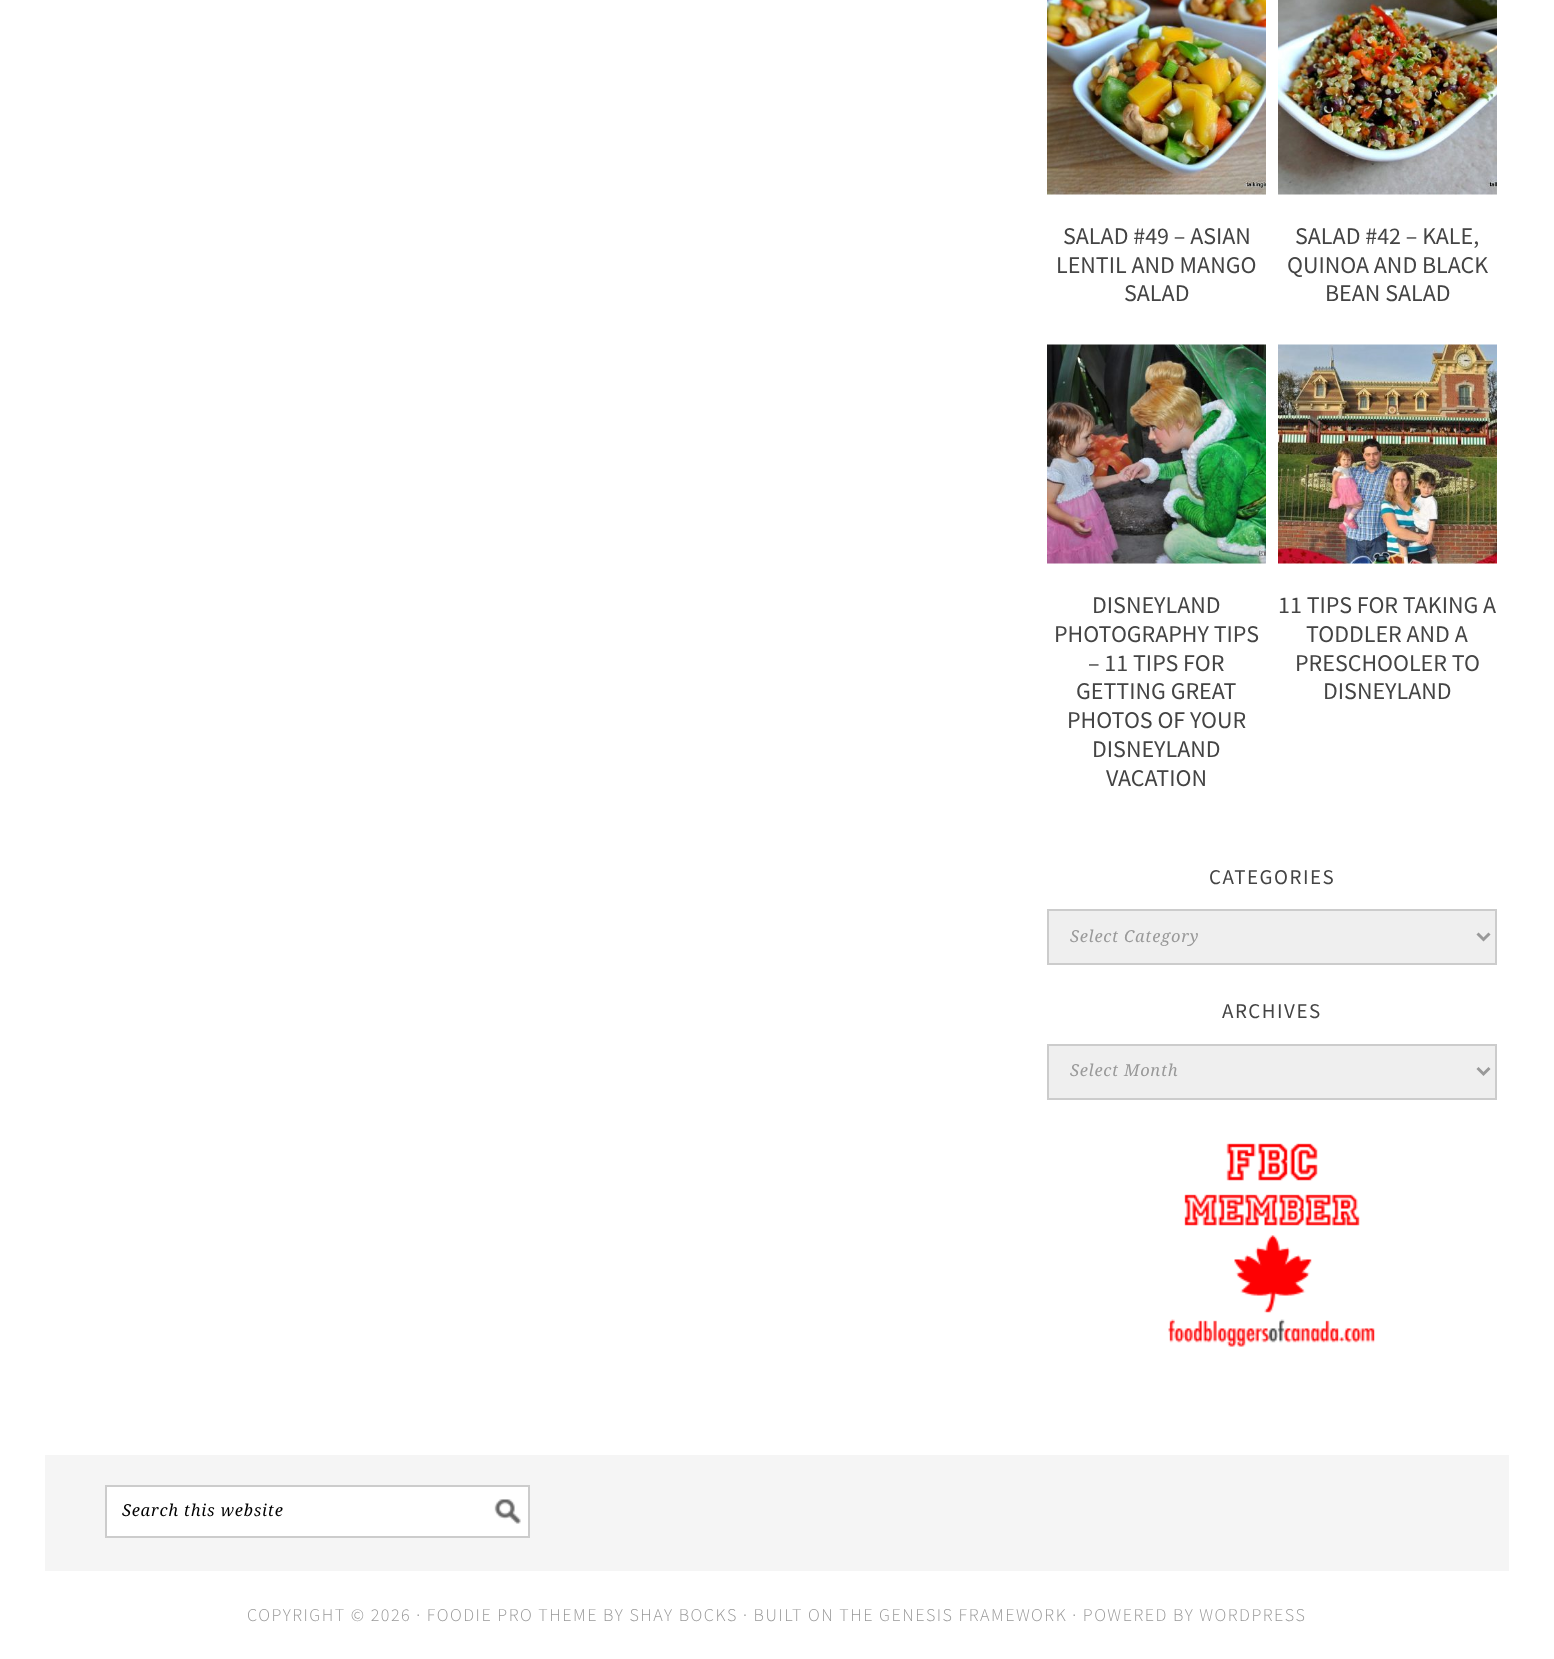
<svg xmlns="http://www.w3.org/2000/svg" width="1554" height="1659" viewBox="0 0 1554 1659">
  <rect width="100%" height="100%" fill="#fff"/>
  <image x="1047" y="0" width="219" height="195" href="img/1.png"/>
  <image x="1278" y="0" width="219" height="195" href="img/2.png"/>
  <image x="1047" y="344" width="219" height="220" href="img/3.png"/>
  <image x="1278" y="344" width="219" height="220" href="img/4.png"/>
  <path d="M1048 910h448v54H1048z" fill="#efefef" stroke="#ccc" stroke-width="2"/>
  <path d="M1477.5 933.5L1483.5 939.5L1489.5 933.5" fill="none" stroke="#999" stroke-width="3"/>
  <path d="M1048 1045h448v54H1048z" fill="#efefef" stroke="#ccc" stroke-width="2"/>
  <path d="M1477.5 1068L1483.5 1074L1489.5 1068" fill="none" stroke="#999" stroke-width="3"/>
  <image x="1168" y="1143" width="207" height="204" href="img/5.png"/>
  <path d="M45 1455h1464v116H45z" fill="#f5f5f5"/>
  <path d="M107 1487h421v49H107z" fill="#fff"/>
  <image x="494" y="1499" width="27" height="25" href="img/6.png"/>
  <path d="M106 1486h423v51H106z" fill="none" stroke="#ccc" stroke-width="2"/>
  <g font-family="Source Sans Pro" font-size="24" fill="#444">
    <text x="1063" y="244">SALAD #49 – ASIAN</text>
    <text x="1056" y="273">LENTIL AND MANGO</text>
    <text x="1124" y="301">SALAD</text>
    <text x="1295" y="244">SALAD #42 – KALE,</text>
    <text x="1287" y="273">QUINOA AND BLACK</text>
    <text x="1325" y="301">BEAN SALAD</text>
    <text x="1092" y="613">DISNEYLAND</text>
    <text x="1054" y="642">PHOTOGRAPHY TIPS</text>
    <text x="1088" y="671">– 11 TIPS FOR</text>
    <text x="1076" y="699">GETTING GREAT</text>
    <text x="1067" y="728">PHOTOS OF YOUR</text>
    <text x="1092" y="757">DISNEYLAND</text>
    <text x="1106" y="786">VACATION</text>
    <text x="1278" y="613">11 TIPS FOR TAKING A</text>
    <text x="1306" y="642">TODDLER AND A</text>
    <text x="1295" y="671">PRESCHOOLER TO</text>
    <text x="1323" y="699">DISNEYLAND</text>
  </g>
  <text x="1209" y="884" font-family="Source Sans Pro" font-size="21" letter-spacing="1.5" fill="#444">CATEGORIES</text>
  <text x="1070" y="942" font-family="Droid Serif" font-size="16.5" font-style="italic" letter-spacing="0.75" fill="#999">Select Category</text>
  <text x="1222" y="1018" font-family="Source Sans Pro" font-size="21" letter-spacing="1.5" fill="#444">ARCHIVES</text>
  <text x="1070" y="1076" font-family="Droid Serif" font-size="16.5" font-style="italic" letter-spacing="0.75" fill="#999">Select Month</text>
  <text x="122" y="1516" font-family="Droid Serif" font-size="16.5" font-style="italic" letter-spacing="0.75" fill="#000">Search this website</text>
  <text x="247" y="1621" font-family="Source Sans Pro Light" font-size="18" font-weight="300" letter-spacing="1.5" fill="#999">COPYRIGHT © 2026 · FOODIE PRO THEME BY SHAY BOCKS · BUILT ON THE GENESIS FRAMEWORK · POWERED BY WORDPRESS</text>
</svg>
